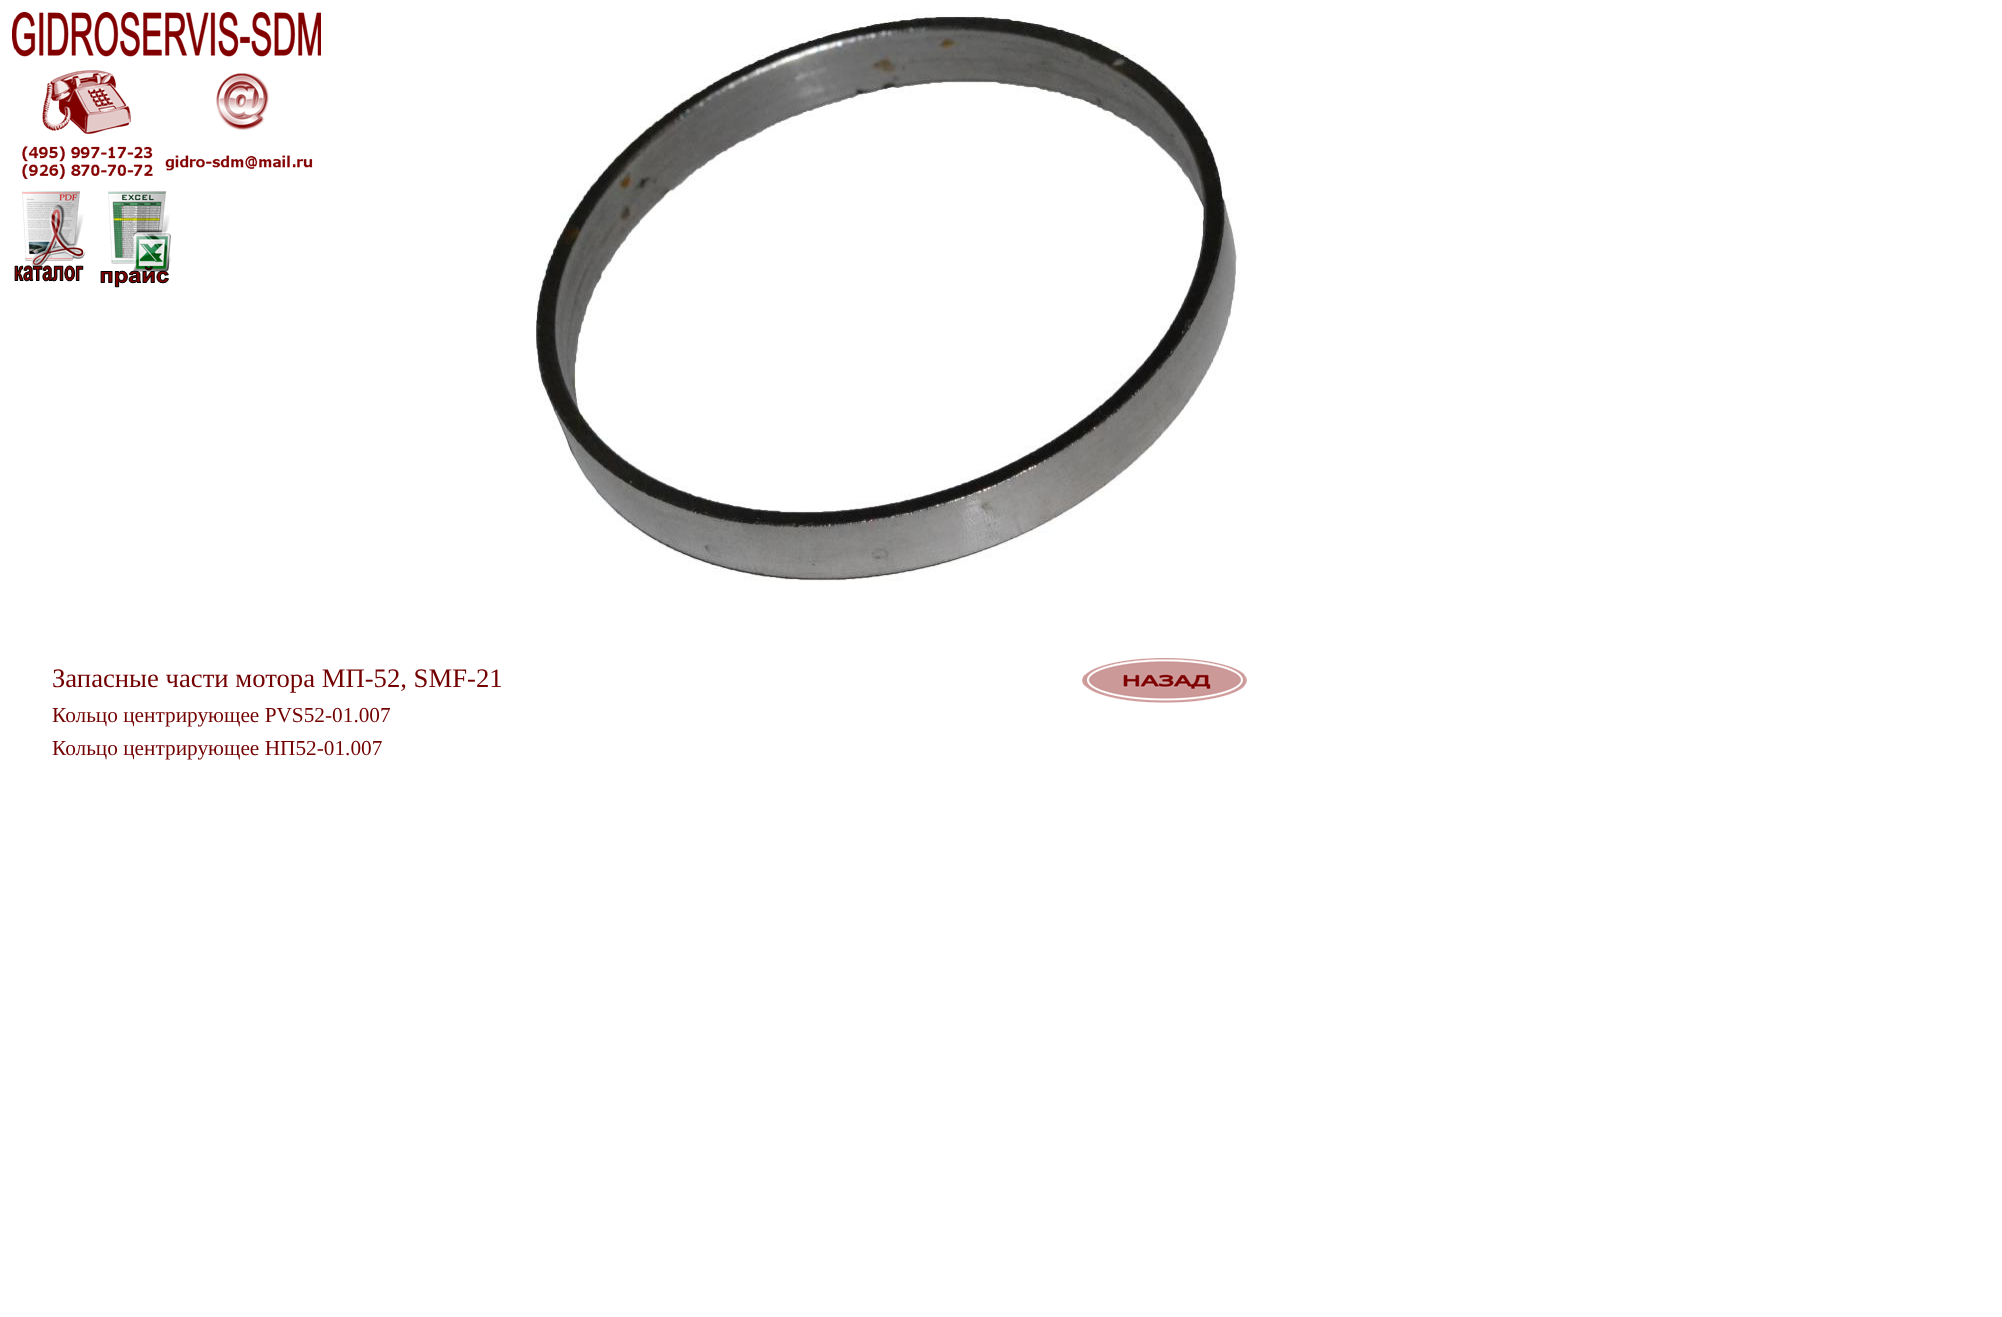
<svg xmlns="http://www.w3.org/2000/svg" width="2002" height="1317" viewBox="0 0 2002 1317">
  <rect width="100%" height="100%" fill="#fff"/>
  <image x="12" y="12" width="309" height="168" href="img/1.png"/>
  <image x="536" y="14" width="704" height="567" href="img/2.png"/>
  <image x="14" y="191" width="157" height="97" href="img/3.png"/>
  <image x="1082" y="658" width="165" height="45" href="img/4.png"/>
  <text x="52" y="687" font-family="Liberation Serif" font-size="26.7" fill="#730000">Запасные части мотора МП-52, SMF-21</text>
  <g font-family="Liberation Serif" font-size="21.3" fill="#730000">
    <text x="52" y="722">Кольцо центрирующее PVS52-01.007</text>
    <text x="52" y="755">Кольцо центрирующее НП52-01.007</text>
  </g>
</svg>
